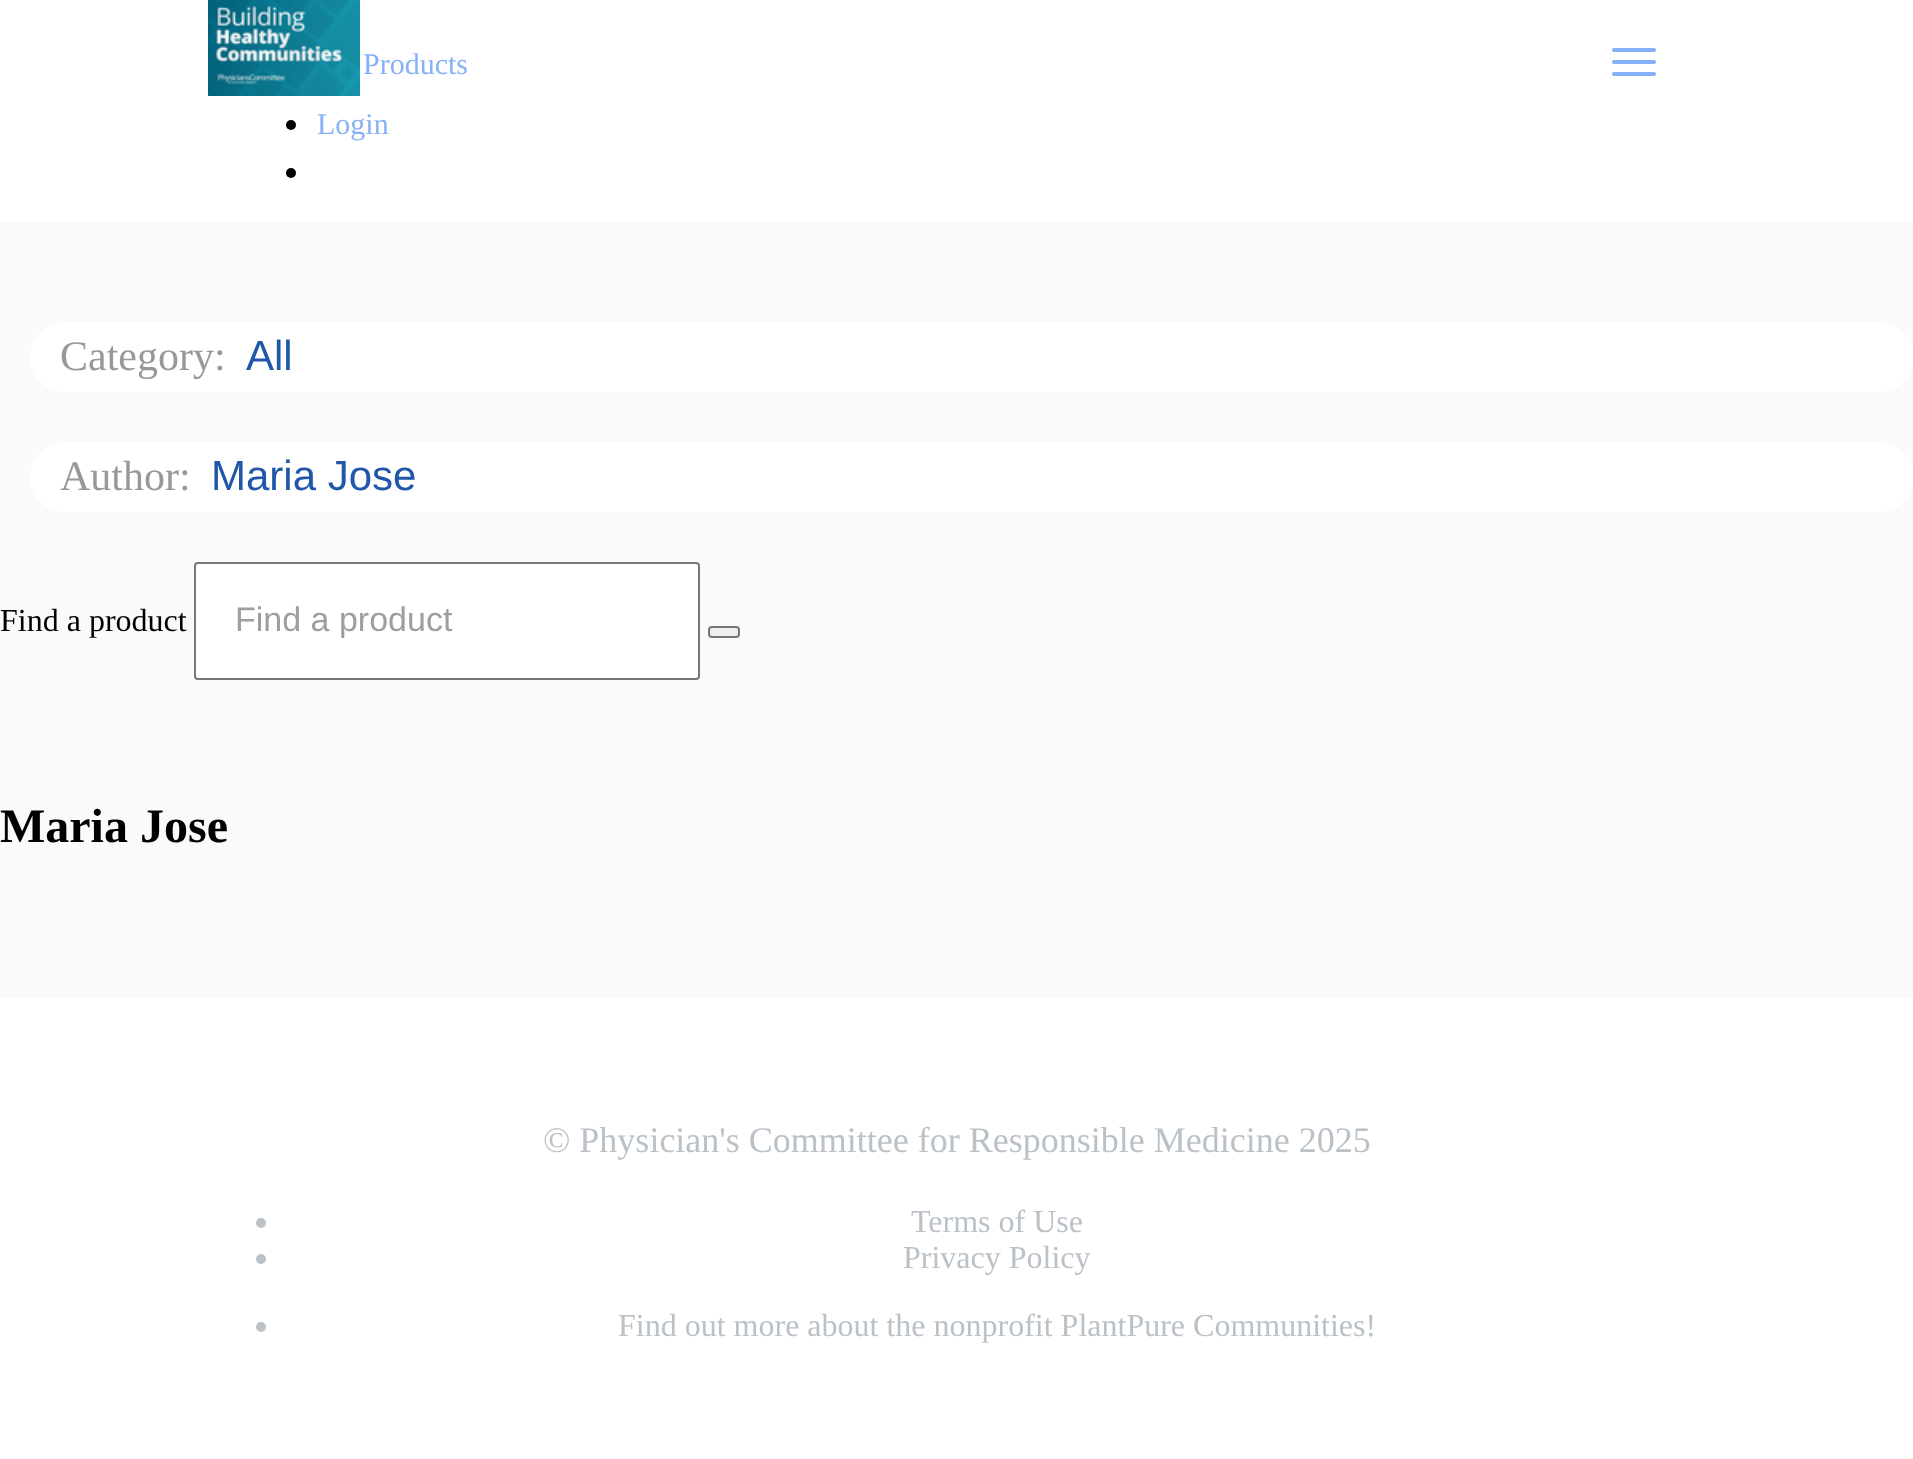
<svg xmlns="http://www.w3.org/2000/svg" width="1913" height="1459" viewBox="0 0 1913 1459">
  <rect width="100%" height="100%" fill="#fff"/>
  <image x="208" y="0" width="152" height="96" href="img/1.png"/>
  <circle cx="291" cy="125" r="5" fill="#000"/>
  <circle cx="291" cy="173" r="5" fill="#000"/>
  <rect x="1612" y="48" width="44" height="4" rx="2" fill="#85b2f6"/>
  <rect x="1612" y="60" width="44" height="4" rx="2" fill="#85b2f6"/>
  <rect x="1612" y="72" width="44" height="4" rx="2" fill="#85b2f6"/>
  <path d="M0 222h1913v776H0z" fill="#fafafa"/>
  <rect x="30" y="322" width="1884" height="70" rx="35" fill="#fff"/>
  <rect x="30" y="442" width="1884" height="70" rx="35" fill="#fff"/>
  <rect x="195" y="563" width="504" height="116" rx="3" fill="#fff" stroke="#767676" stroke-width="2"/>
  <rect x="709" y="627" width="30" height="10" rx="3" fill="#efefef" stroke="#767676" stroke-width="2"/>
  <circle cx="261" cy="1223" r="5" fill="#bac1c7"/>
  <circle cx="261" cy="1259" r="5" fill="#bac1c7"/>
  <circle cx="261" cy="1327" r="5" fill="#bac1c7"/>
  <g font-family="Liberation Serif" font-size="30" fill="#85b2f6">
    <text x="363" y="74">Products</text>
    <text x="317" y="134">Login</text>
  </g>
  <text x="60" y="370" font-family="Liberation Serif" font-size="42" fill="#989898">Category:</text>
  <text x="246" y="370" font-family="Liberation Sans" font-size="42" fill="#2057a8">All</text>
  <text x="60" y="490" font-family="Liberation Serif" font-size="42" fill="#989898">Author:</text>
  <text x="211" y="490" font-family="Liberation Sans" font-size="42" fill="#2057a8">Maria Jose</text>
  <text x="0" y="631" font-family="Liberation Serif" font-size="32" fill="#000">Find a product</text>
  <text x="235" y="631" font-family="Liberation Sans" font-size="34" fill="#9e9e9e">Find a product</text>
  <text x="0" y="842" font-family="Liberation Serif" font-size="48" font-weight="bold" fill="#000">Maria Jose</text>
  <text x="543" y="1152" font-family="Liberation Serif" font-size="36" fill="#bac1c7">© Physician's Committee for Responsible Medicine 2025</text>
  <g font-family="Liberation Serif" font-size="32" fill="#bac1c7">
    <text x="911" y="1232">Terms of Use</text>
    <text x="903" y="1268">Privacy Policy</text>
    <text x="618" y="1336">Find out more about the nonprofit PlantPure Communities!</text>
  </g>
</svg>
